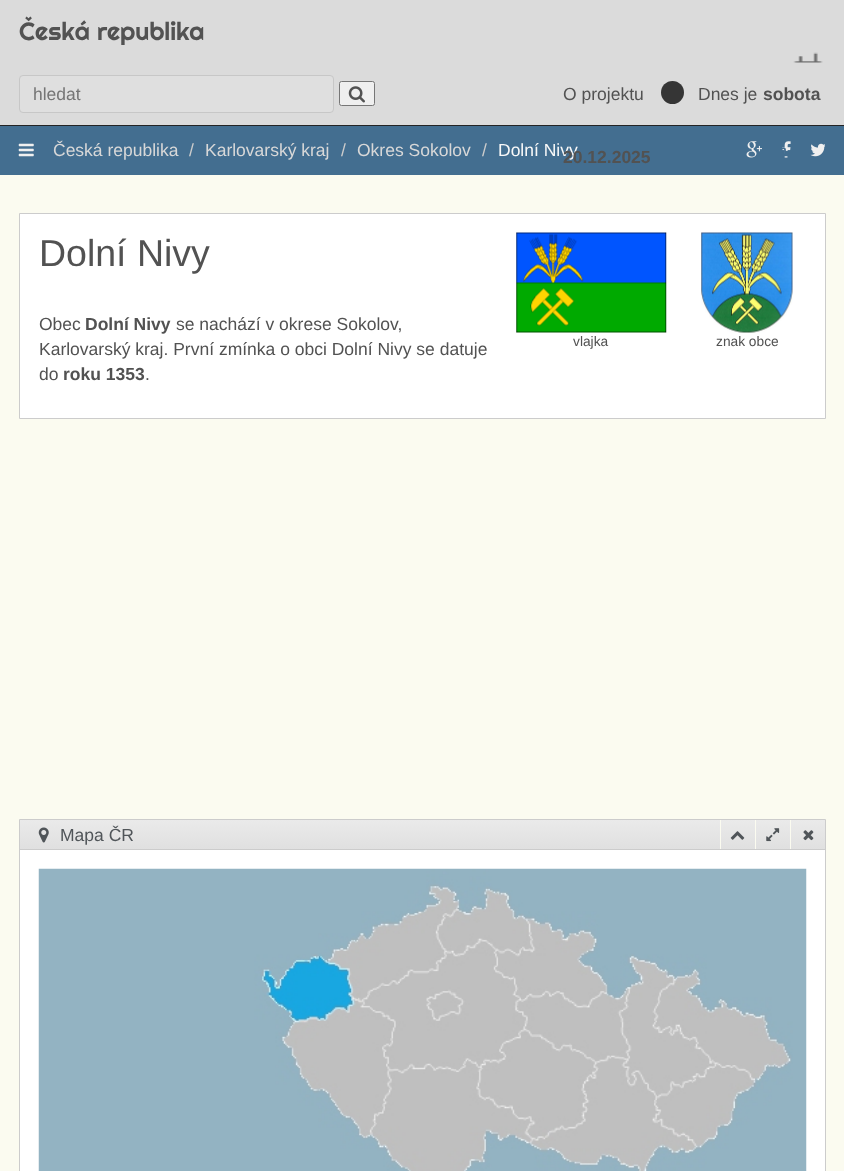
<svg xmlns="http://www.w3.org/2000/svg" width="844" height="1171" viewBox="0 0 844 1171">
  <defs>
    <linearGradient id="g1" gradientUnits="userSpaceOnUse" x1="423" y1="820" x2="423" y2="849"><stop offset="0" stop-color="#eaeaea"/><stop offset="1" stop-color="#e0e0e0"/></linearGradient>
  </defs>
  <rect width="100%" height="100%" fill="#fbfbf0"/>
  <path d="M0 125h844v1H0z" fill="#242424"/>
  <path d="M0 0h844v125H0z" fill="#dbdbdb"/>
  <image x="793" y="52" width="30" height="11" href="img/1.png"/>
  <rect x="19.5" y="75.5" width="314" height="37" rx="3.5" fill="#dfdfdf" stroke="#c7c7c7"/>
  <rect x="339.5" y="81.5" width="35" height="24" rx="2" fill="#efefef" stroke="#767676"/>
  <image x="348" y="86" width="17" height="17" href="img/2.png"/>
  <circle cx="672.5" cy="92.5" r="11.5" fill="#353535"/>
  <path d="M0 126h844v49H0z" fill="#436e90"/>
  <image x="782" y="141" width="9" height="17" href="img/6.png"/>
  <image x="782" y="147" width="6" height="11" href="img/3.png"/>
  <image x="18" y="143" width="16" height="14" href="img/4.png"/>
  <image x="746" y="141" width="16" height="17" href="img/5.png"/>
  <image x="810" y="143" width="15" height="14" href="img/7.png"/>
  <path d="M19.5 213.5h806v205H19.5z" fill="none" stroke="#ccc"/>
  <path d="M20 214h805v204H20z" fill="#fff"/>
  <image x="516" y="232" width="151" height="101" href="img/8.png"/>
  <image x="701" y="232" width="92" height="101" href="img/9.png"/>
  <path d="M19.5 819.5h806v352H19.5z" fill="none" stroke="#ccc"/>
  <path d="M20 820h805v29H20z" fill="url(#g1)"/>
  <path d="M20 849h805v1H20z" fill="#ccc"/>
  <image x="38" y="827" width="11" height="16" href="img/10.png"/>
  <path d="M720 820h1v29H720z" fill="#fbfbf0"/>
  <image x="730" y="831" width="15" height="9" href="img/11.png"/>
  <path d="M755 820h1v29H755z" fill="#fbfbf0"/>
  <image x="766" y="828" width="14" height="14" href="img/12.png"/>
  <path d="M790 820h1v29H790z" fill="#fbfbf0"/>
  <image x="803" y="830" width="11" height="11" href="img/13.png"/>
  <path d="M20 850h805v321H20z" fill="#fff"/>
  <image x="38" y="868" width="769" height="303" href="img/14.png"/>
  <text x="19" y="40" font-family="Righteous" font-size="25" fill="#525252">Česká republika</text>
  <text x="33" y="100" font-family="Liberation Sans" font-size="17.5" fill="#757575">hledat</text>
  <g font-family="Liberation Sans" font-size="17.5" fill="#525252">
    <text x="563" y="100">O projektu</text>
    <text x="698" y="100">Dnes je</text>
  </g>
  <text x="763" y="100" font-family="Liberation Sans" font-size="17.5" font-weight="bold" fill="#525252">sobota</text>
  <text x="53" y="156" font-family="Liberation Sans" font-size="17.5" fill="#d8d8d8">Česká republika</text>
  <text x="189" y="156" font-family="Liberation Sans" font-size="17.5" fill="#ccc">/</text>
  <text x="205" y="156" font-family="Liberation Sans" font-size="17.5" fill="#d8d8d8">Karlovarský kraj</text>
  <text x="341" y="156" font-family="Liberation Sans" font-size="17.5" fill="#ccc">/</text>
  <text x="357" y="156" font-family="Liberation Sans" font-size="17.5" fill="#d8d8d8">Okres Sokolov</text>
  <text x="482" y="156" font-family="Liberation Sans" font-size="17.5" fill="#ccc">/</text>
  <text x="498" y="156" font-family="Liberation Sans" font-size="17.5" fill="#f8f8f8">Dolní Nivy</text>
  <text x="563" y="163" font-family="Liberation Sans" font-size="17.5" font-weight="bold" fill="#525252">20.12.2025</text>
  <text x="39" y="266" font-family="Liberation Sans" font-size="37.5" fill="#525252">Dolní Nivy</text>
  <text x="39" y="330" font-family="Liberation Sans" font-size="17.5" fill="#525252">Obec</text>
  <text x="85" y="330" font-family="Liberation Sans" font-size="17.5" font-weight="bold" fill="#525252">Dolní Nivy</text>
  <g font-family="Liberation Sans" font-size="17.5" fill="#525252">
    <text x="176" y="330">se nachází v okrese Sokolov,</text>
    <text x="39" y="355">Karlovarský kraj. První zmínka o obci Dolní Nivy se datuje</text>
    <text x="39" y="380">do</text>
  </g>
  <text x="63" y="380" font-family="Liberation Sans" font-size="17.5" font-weight="bold" fill="#525252">roku 1353</text>
  <text x="145" y="380" font-family="Liberation Sans" font-size="17.5" fill="#525252">.</text>
  <g font-family="Liberation Sans" font-size="13.75" fill="#525252">
    <text x="573" y="346">vlajka</text>
    <text x="716" y="346">znak obce</text>
  </g>
  <text x="60" y="841" font-family="Liberation Sans" font-size="17.5" fill="#505559">Mapa ČR</text>
</svg>
